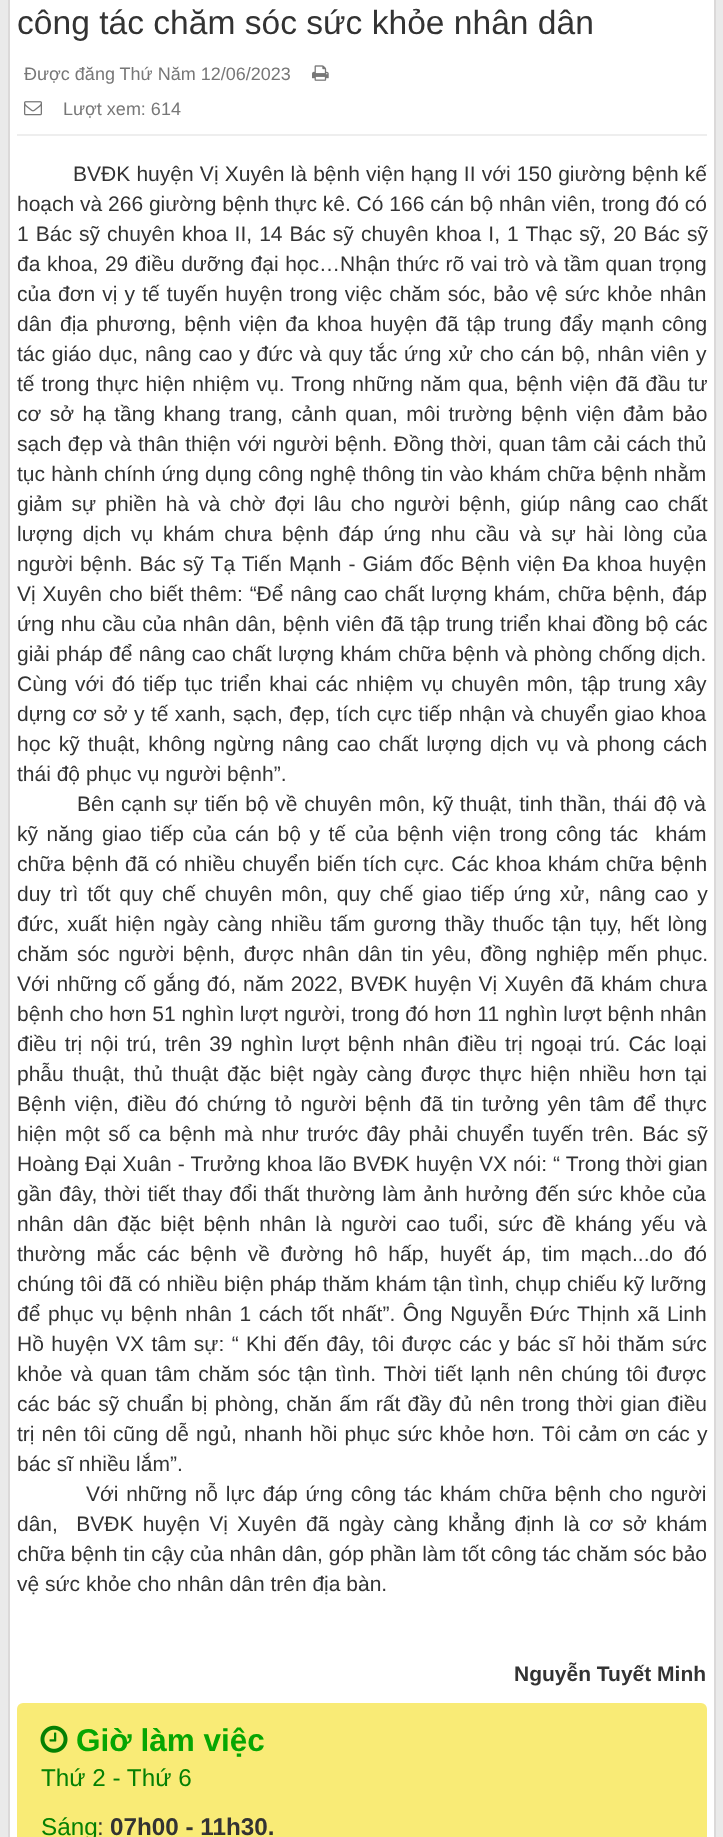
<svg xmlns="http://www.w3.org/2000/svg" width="723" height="1837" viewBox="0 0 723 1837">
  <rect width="100%" height="100%" fill="#eaeaea"/>
  <path d="M10 0h704v1837H10z" fill="#fff"/>
  <path d="M714 0h2v1837H714z" fill="#dbd9d9"/>
  <path d="M8 0h2v1837H8z" fill="#dbd9d9"/>
  <image x="312" y="65" width="17" height="16" href="img/1.png"/>
  <image x="24" y="101" width="18" height="15" href="img/2.png"/>
  <path d="M17 134h690v2H17z" fill="#eee"/>
  <rect x="17" y="1703" width="690" height="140" rx="6" fill="#f9eb76"/>
  <image x="40" y="1725" width="28" height="28" href="img/3.png"/>
  <text x="17" y="34" font-family="Liberation Sans" font-size="33.6" fill="#333">công tác chăm sóc sức khỏe nhân dân</text>
  <g font-family="Liberation Sans" font-size="18" fill="#777">
    <text x="24" y="80">Được đăng Thứ Năm 12/06/2023</text>
    <text x="63" y="115">Lượt xem: 614</text>
  </g>
  <g font-family="Liberation Sans" font-size="21" fill="#333">
    <text x="73" y="181" word-spacing="0.4">BVĐK huyện Vị Xuyên là bệnh viện hạng II với 150 giường bệnh kế</text>
    <text x="17" y="211">hoạch và 266 giường bệnh thực kê. Có 166 cán bộ nhân viên, trong đó có</text>
    <text x="17" y="241" word-spacing="1.25">1 Bác sỹ chuyên khoa II, 14 Bác sỹ chuyên khoa I, 1 Thạc sỹ, 20 Bác sỹ</text>
    <text x="17" y="271" word-spacing="0.75">đa khoa, 29 điều dưỡng đại học…Nhận thức rõ vai trò và tầm quan trọng</text>
    <text x="17" y="301" word-spacing="1.3">của đơn vị y tế tuyến huyện trong việc chăm sóc, bảo vệ sức khỏe nhân</text>
    <text x="17" y="331" word-spacing="2.1">dân địa phương, bệnh viện đa khoa huyện đã tập trung đẩy mạnh công</text>
    <text x="17" y="361" word-spacing="1">tác giáo dục, nâng cao y đức và quy tắc ứng xử cho cán bộ, nhân viên y</text>
    <text x="17" y="391" word-spacing="1.2">tế trong thực hiện nhiệm vụ. Trong những năm qua, bệnh viện đã đầu tư</text>
    <text x="17" y="421" word-spacing="2.6">cơ sở hạ tầng khang trang, cảnh quan, môi trường bệnh viện đảm bảo</text>
    <text x="17" y="451" word-spacing="0.6">sạch đẹp và thân thiện với người bệnh. Đồng thời, quan tâm cải cách thủ</text>
    <text x="17" y="481" word-spacing="0.3">tục hành chính ứng dụng công nghệ thông tin vào khám chữa bệnh nhằm</text>
    <text x="17" y="511" word-spacing="3.25">giảm sự phiền hà và chờ đợi lâu cho người bệnh, giúp nâng cao chất</text>
    <text x="17" y="541" word-spacing="4">lượng dịch vụ khám chưa bệnh đáp ứng nhu cầu và sự hài lòng của</text>
    <text x="17" y="571" word-spacing="1.25">người bệnh. Bác sỹ Tạ Tiến Mạnh - Giám đốc Bệnh viện Đa khoa huyện</text>
    <text x="17" y="601" word-spacing="1">Vị Xuyên cho biết thêm: “Để nâng cao chất lượng khám, chữa bệnh, đáp</text>
    <text x="17" y="631" word-spacing="0.5">ứng nhu cầu của nhân dân, bệnh viên đã tập trung triển khai đồng bộ các</text>
    <text x="17" y="661" word-spacing="0.5">giải pháp để nâng cao chất lượng khám chữa bệnh và phòng chống dịch.</text>
    <text x="17" y="691" word-spacing="2">Cùng với đó tiếp tục triển khai các nhiệm vụ chuyên môn, tập trung xây</text>
    <text x="17" y="721" word-spacing="0.6">dựng cơ sở y tế xanh, sạch, đẹp, tích cực tiếp nhận và chuyển giao khoa</text>
    <text x="17" y="751" word-spacing="2.1">học kỹ thuật, không ngừng nâng cao chất lượng dịch vụ và phong cách</text>
    <text x="17" y="781">thái độ phục vụ người bệnh”.</text>
    <text x="77" y="811" word-spacing="0.9">Bên cạnh sự tiến bộ về chuyên môn, kỹ thuật, tinh thần, thái độ và</text>
    <text x="17" y="841" word-spacing="2.75" xml:space="preserve">kỹ năng giao tiếp của cán bộ y tế của bệnh viện trong công tác  khám</text>
    <text x="17" y="871" word-spacing="0.9">chữa bệnh đã có nhiều chuyển biến tích cực. Các khoa khám chữa bệnh</text>
    <text x="17" y="901" word-spacing="3">duy trì tốt quy chế chuyên môn, quy chế giao tiếp ứng xử, nâng cao y</text>
    <text x="17" y="931" word-spacing="2.4">đức, xuất hiện ngày càng nhiều tấm gương thầy thuốc tận tụy, hết lòng</text>
    <text x="17" y="961" word-spacing="2.75">chăm sóc người bệnh, được nhân dân tin yêu, đồng nghiệp mến phục.</text>
    <text x="17" y="991" word-spacing="1.1">Với những cố gắng đó, năm 2022, BVĐK huyện Vị Xuyên đã khám chưa</text>
    <text x="17" y="1021">bệnh cho hơn 51 nghìn lượt người, trong đó hơn 11 nghìn lượt bệnh nhân</text>
    <text x="17" y="1051" word-spacing="2.25">điều trị nội trú, trên 39 nghìn lượt bệnh nhân điều trị ngoại trú. Các loại</text>
    <text x="17" y="1081" word-spacing="2.9">phẫu thuật, thủ thuật đặc biệt ngày càng được thực hiện nhiều hơn tại</text>
    <text x="17" y="1111" word-spacing="2.5">Bệnh viện, điều đó chứng tỏ người bệnh đã tin tưởng yên tâm để thực</text>
    <text x="17" y="1141" word-spacing="2.4">hiện một số ca bệnh mà như trước đây phải chuyển tuyến trên. Bác sỹ</text>
    <text x="17" y="1171" word-spacing="0.25">Hoàng Đại Xuân - Trưởng khoa lão BVĐK huyện VX nói: “ Trong thời gian</text>
    <text x="17" y="1201" word-spacing="1.25">gần đây, thời tiết thay đổi thất thường làm ảnh hưởng đến sức khỏe của</text>
    <text x="17" y="1231" word-spacing="3.4">nhân dân đặc biệt bệnh nhân là người cao tuổi, sức đề kháng yếu và</text>
    <text x="17" y="1261" word-spacing="4.9">thường mắc các bệnh về đường hô hấp, huyết áp, tim mạch...do đó</text>
    <text x="17" y="1291" word-spacing="0.3">chúng tôi đã có nhiều biện pháp thăm khám tận tình, chụp chiếu kỹ lưỡng</text>
    <text x="17" y="1321" word-spacing="1.75">để phục vụ bệnh nhân 1 cách tốt nhất”. Ông Nguyễn Đức Thịnh xã Linh</text>
    <text x="17" y="1351" word-spacing="1.6">Hồ huyện VX tâm sự: “ Khi đến đây, tôi được các y bác sĩ hỏi thăm sức</text>
    <text x="17" y="1381" word-spacing="2.1">khỏe và quan tâm chăm sóc tận tình. Thời tiết lạnh nên chúng tôi được</text>
    <text x="17" y="1411" word-spacing="1.5">các bác sỹ chuẩn bị phòng, chăn ấm rất đầy đủ nên trong thời gian điều</text>
    <text x="17" y="1441" word-spacing="1.25">trị nên tôi cũng dễ ngủ, nhanh hồi phục sức khỏe hơn. Tôi cảm ơn các y</text>
    <text x="17" y="1471">bác sĩ nhiều lắm”.</text>
    <text x="86" y="1501" word-spacing="1.9">Với những nỗ lực đáp ứng công tác khám chữa bệnh cho người</text>
    <text x="17" y="1531" word-spacing="3.4" xml:space="preserve">dân,  BVĐK huyện Vị Xuyên đã ngày càng khẳng định là cơ sở khám</text>
    <text x="17" y="1561">chữa bệnh tin cậy của nhân dân, góp phần làm tốt công tác chăm sóc bảo</text>
    <text x="17" y="1591">vệ sức khỏe cho nhân dân trên địa bàn.</text>
  </g>
  <text x="514" y="1681" font-family="Liberation Sans" font-size="21" font-weight="bold" fill="#333">Nguyễn Tuyết Minh</text>
  <text x="76" y="1751" font-family="Liberation Sans" font-size="31.5" font-weight="bold" fill="#07a603">Giờ làm việc</text>
  <g font-family="Liberation Sans" font-size="24.25" fill="#058003">
    <text x="41" y="1786">Thứ 2 - Thứ 6</text>
    <text x="41" y="1835">Sáng</text>
  </g>
  <text x="97" y="1835" font-family="Liberation Sans" font-size="24.25" fill="#333">:</text>
  <text x="110" y="1835" font-family="Liberation Sans" font-size="24.25" font-weight="bold" fill="#333">07h00 - 11h30.</text>
</svg>
